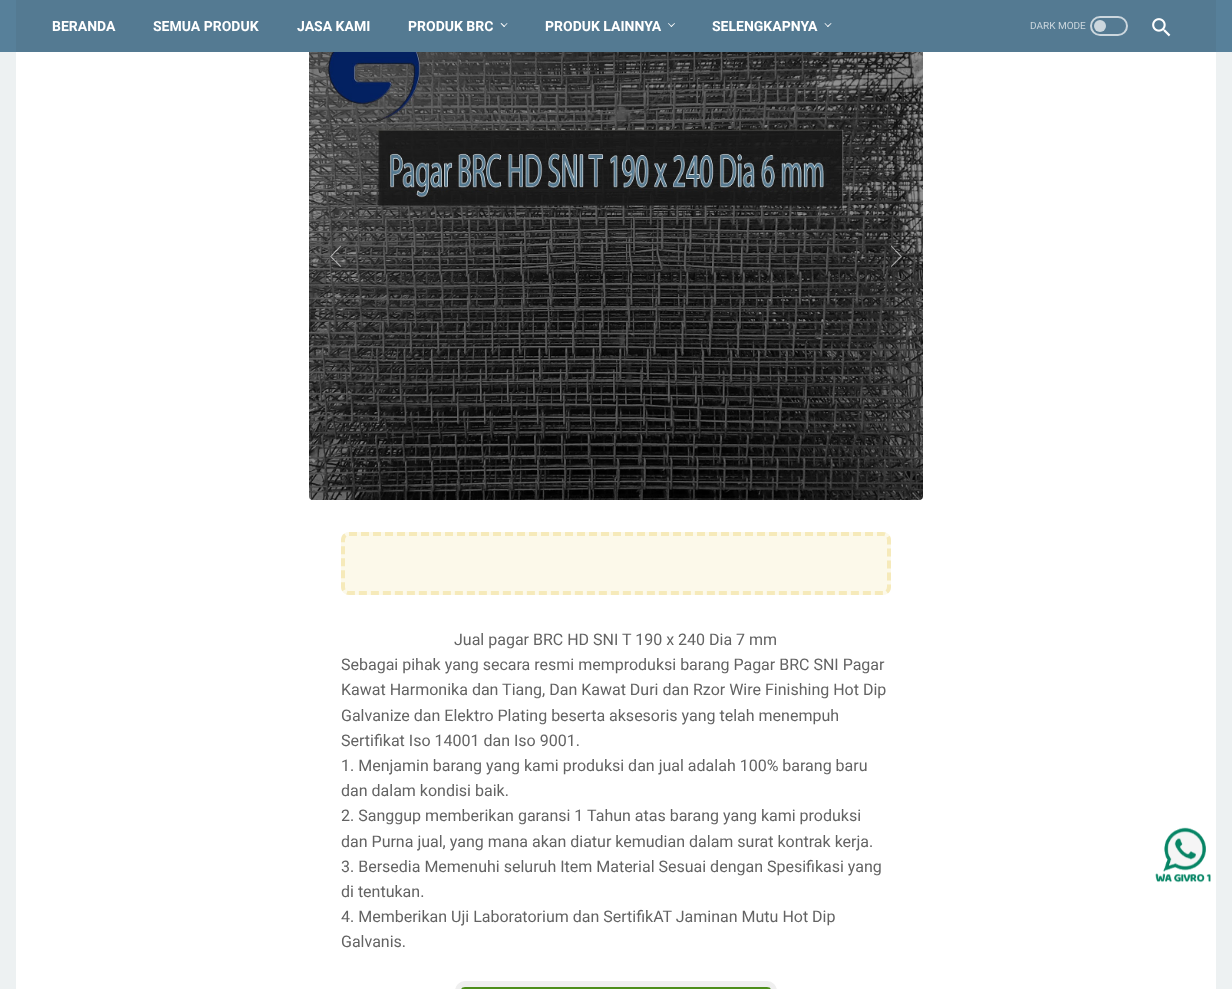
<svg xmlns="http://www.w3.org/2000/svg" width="1232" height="989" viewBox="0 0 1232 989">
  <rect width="100%" height="100%" fill="#edf1f2"/>
  <path d="M0 0h1232v52H0z" fill="#57809a"/>
  <path d="M16 0h1200v52H16z" fill="#547a92"/>
  <path d="M503.5 26.5L507 23L507.5 23.5L504 27Z" fill="#fff"/>
  <path d="M500.5 23.5L501.5 23L505 26.5L504 27Z" fill="#fff"/>
  <path d="M670.5 26.5L674.5 23L675 23.5L671.5 27Z" fill="#fff"/>
  <path d="M668 23.5L668.5 23L672 26.5L671.5 27Z" fill="#fff"/>
  <path d="M827 26.5L831 23L831.5 23.5L828 27Z" fill="#fff"/>
  <path d="M824.5 23.5L825 23L828.5 26.5L828 27Z" fill="#fff"/>
  <rect x="1091" y="17" width="36" height="18" rx="9" fill="none" stroke="#ccd7de" stroke-width="2"/>
  <circle cx="1100" cy="26" r="6" fill="#ccd7de"/>
  <image x="1152" y="18" width="19" height="19" href="img/1.png"/>
  <path d="M16 52h1200v937H16z" fill="#fff"/>
  <image x="309" y="52" width="614" height="448" href="img/2.png"/>
  <path d="M340.5 267L330 256.5H331.5L341 266Z" fill="#ffffff99"/>
  <path d="M330 256.5L340.5 245.5L341 246.5L331.5 256.5Z" fill="#ffffff99"/>
  <path d="M891.5 245.5L902 256.5H900.5L891 246.5Z" fill="#ffffff99"/>
  <path d="M902 256.5L891.5 267L891 266L900.5 256.5Z" fill="#ffffff99"/>
  <rect x="341" y="532" width="550" height="63" rx="8" fill="#fcf9ea"/>
  <path d="M349 534H883C886.5 534 889 536.5 889 540V587C889 590.5 886.5 593 883 593H349C345.5 593 343 590.5 343 587V540C343 536.5 345.5 534 349 534Z" fill="none" stroke="#eaca5352" stroke-width="4" stroke-dasharray="8 4"/>
  <rect x="458" y="984" width="316" height="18" rx="7" fill="none" stroke="#efefef" stroke-width="6"/>
  <rect x="461" y="987" width="310" height="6" rx="4" fill="#4c8e1a"/>
  <image x="1155" y="827" width="56" height="56" href="img/3.png"/>
  <g font-family="Roboto" font-size="14" font-weight="bold" fill="#fff">
    <text x="52" y="31">BERANDA</text>
    <text x="153" y="31">SEMUA PRODUK</text>
    <text x="297" y="31">JASA KAMI</text>
    <text x="408" y="31">PRODUK BRC</text>
    <text x="545" y="31">PRODUK LAINNYA</text>
    <text x="712" y="31">SELENGKAPNYA</text>
  </g>
  <text x="1030" y="29" font-family="Roboto" font-size="10" fill="#ccd7de">DARK MODE</text>
  <g font-family="Roboto" font-size="16" fill="#636363">
    <text x="454" y="645">Jual pagar BRC HD SNI T 190 x 240 Dia 7 mm</text>
    <text x="341" y="670">Sebagai pihak yang secara resmi memproduksi barang Pagar BRC SNI Pagar</text>
    <text x="341" y="695">Kawat Harmonika dan Tiang, Dan Kawat Duri dan Rzor Wire Finishing Hot Dip</text>
    <text x="341" y="721">Galvanize dan Elektro Plating beserta aksesoris yang telah menempuh</text>
    <text x="341" y="746">Sertifikat Iso 14001 dan Iso 9001.</text>
    <text x="341" y="771">1. Menjamin barang yang kami produksi dan jual adalah 100% barang baru</text>
    <text x="341" y="796">dan dalam kondisi baik.</text>
    <text x="341" y="821">2. Sanggup memberikan garansi 1 Tahun atas barang yang kami produksi</text>
    <text x="341" y="847">dan Purna jual, yang mana akan diatur kemudian dalam surat kontrak kerja.</text>
    <text x="341" y="872">3. Bersedia Memenuhi seluruh Item Material Sesuai dengan Spesifikasi yang</text>
    <text x="341" y="897">di tentukan.</text>
    <text x="341" y="922">4. Memberikan Uji Laboratorium dan SertifikAT Jaminan Mutu Hot Dip</text>
    <text x="341" y="947">Galvanis.</text>
  </g>
</svg>
